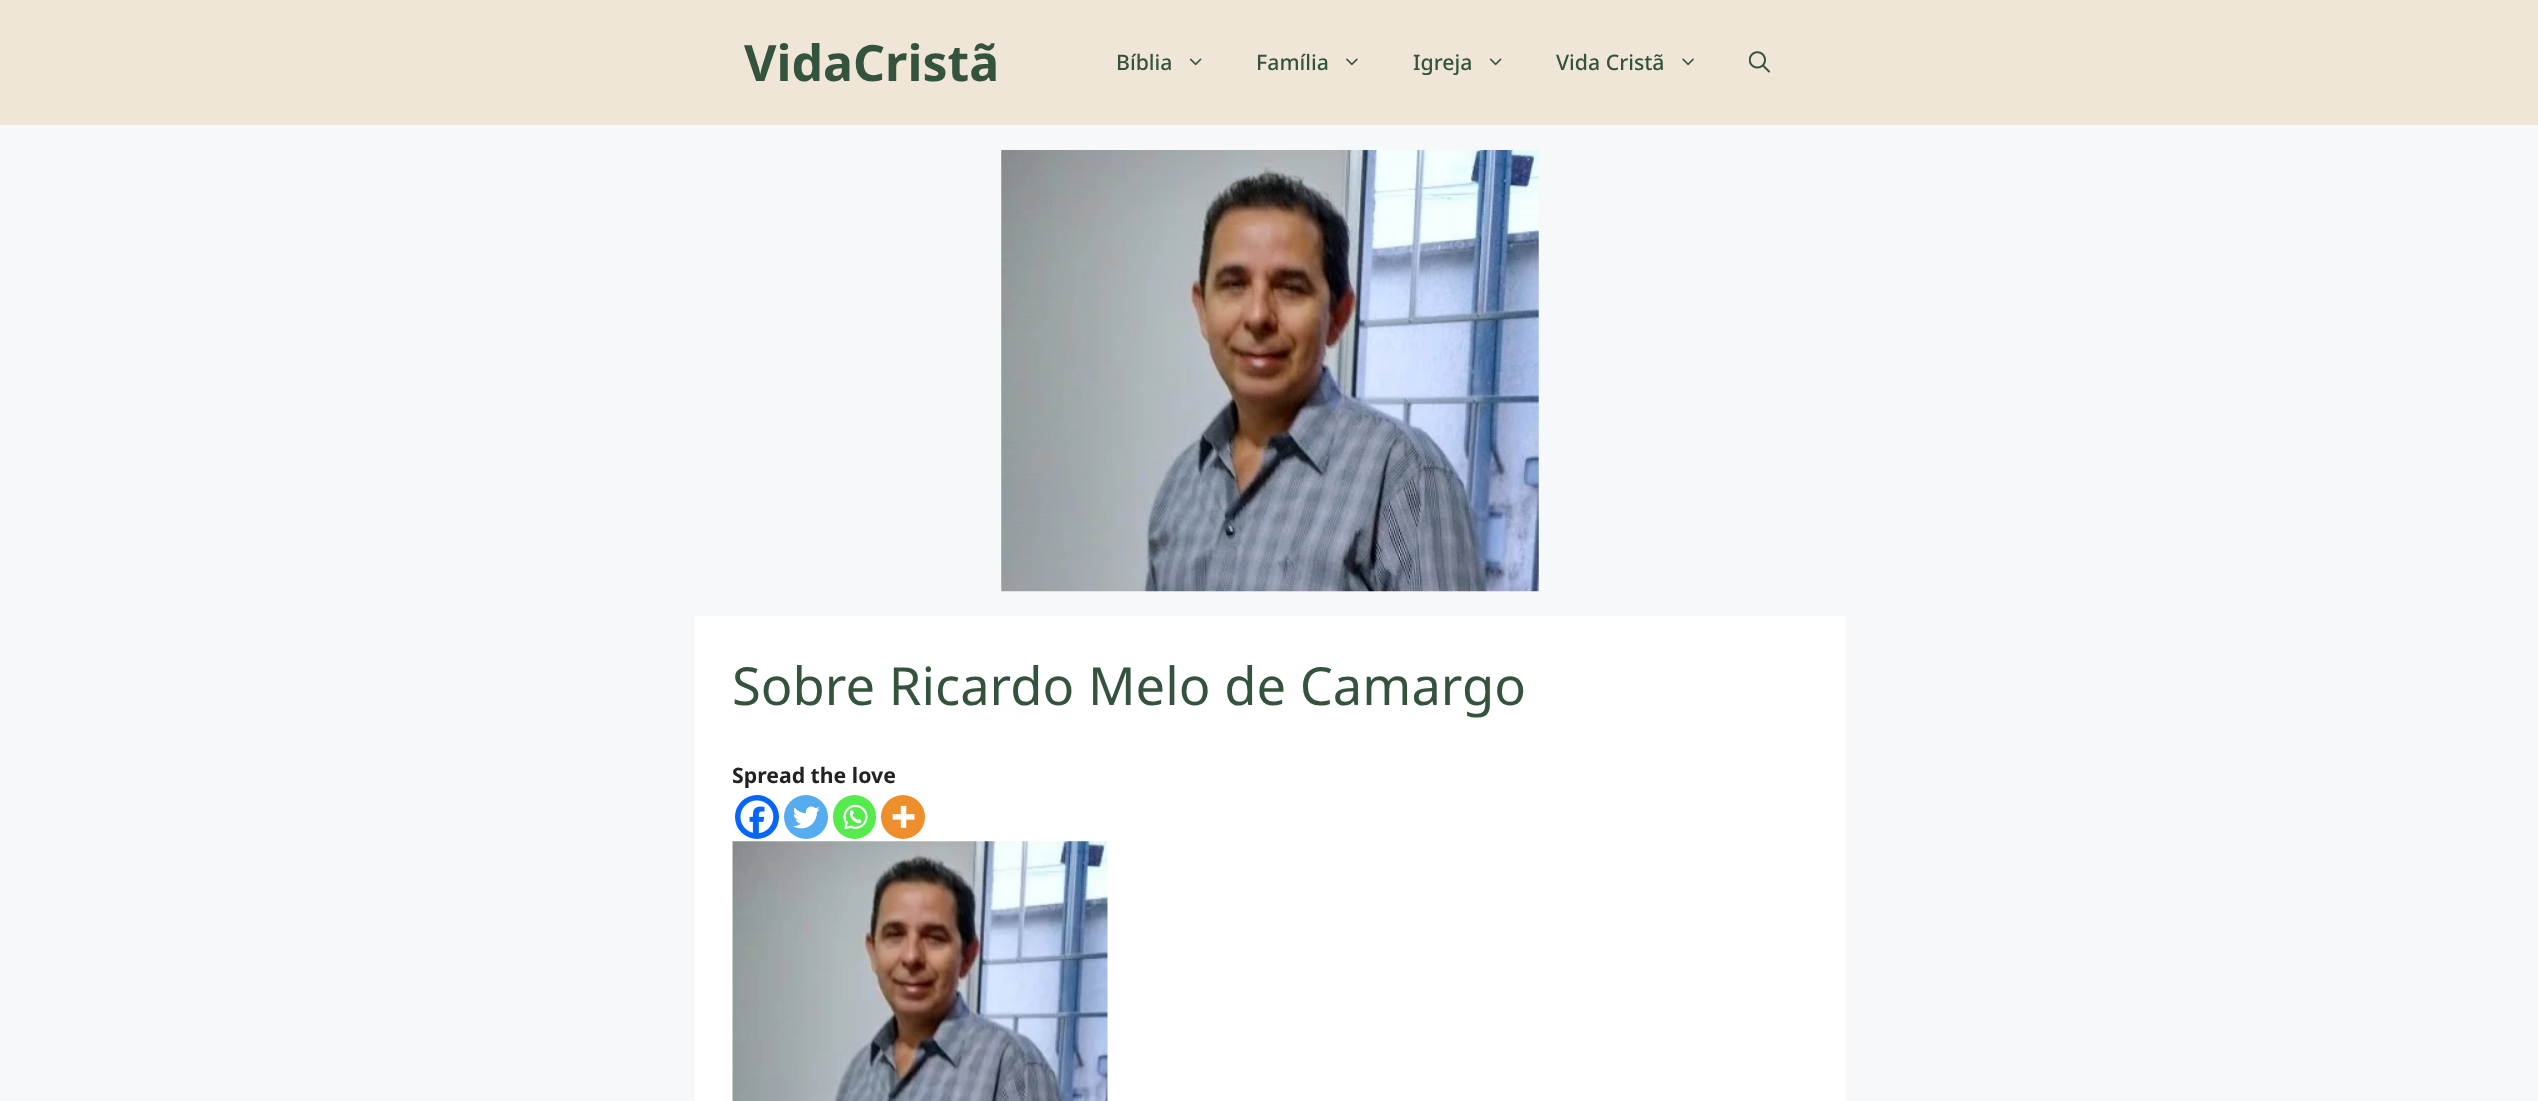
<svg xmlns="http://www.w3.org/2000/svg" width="2538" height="1101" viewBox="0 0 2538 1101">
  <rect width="100%" height="100%" fill="#f7f8f9"/>
  <path d="M0 0h2538v125H0z" fill="#efe6d7"/>
  <image x="1189" y="58" width="13" height="8" href="img/1.png"/>
  <image x="1346" y="58" width="12" height="8" href="img/2.png"/>
  <image x="1489" y="58" width="13" height="8" href="img/1.png"/>
  <image x="1682" y="58" width="12" height="8" href="img/3.png"/>
  <image x="1749" y="51" width="21" height="22" href="img/4.png"/>
  <image x="1001" y="150" width="538" height="442" href="img/5.png"/>
  <path d="M695 616h1150v485H695z" fill="#fff"/>
  <circle cx="757" cy="817" r="22" fill="#0765fe"/>
  <image x="740" y="800" width="34" height="34" href="img/6.png"/>
  <circle cx="806" cy="817" r="22" fill="#55acee"/>
  <image x="793" y="806" width="27" height="23" href="img/7.png"/>
  <rect x="833" y="795" width="43" height="44" rx="21.5" fill="#55eb4c"/>
  <image x="843" y="804" width="25" height="26" href="img/8.png"/>
  <circle cx="903" cy="817" r="22" fill="#ee8e2d"/>
  <image x="892" y="805" width="23" height="23" href="img/9.png"/>
  <image x="732" y="841" width="376" height="260" href="img/10.png"/>
  <text x="744" y="81" font-family="Noto Sans" font-size="50" font-weight="bold" fill="#34533c">VidaCristã</text>
  <g font-family="Noto Sans" font-size="21.25" font-weight="500" fill="#34533c">
    <text x="1116" y="70">Bíblia</text>
    <text x="1256" y="70">Família</text>
    <text x="1413" y="70">Igreja</text>
    <text x="1556" y="70">Vida Cristã</text>
  </g>
  <text x="732" y="705" font-family="Noto Sans" font-size="52.5" fill="#34533c">Sobre Ricardo Melo de Camargo</text>
  <text x="732" y="783" font-family="Noto Sans" font-size="21.25" font-weight="bold" fill="#222">Spread the love</text>
</svg>
